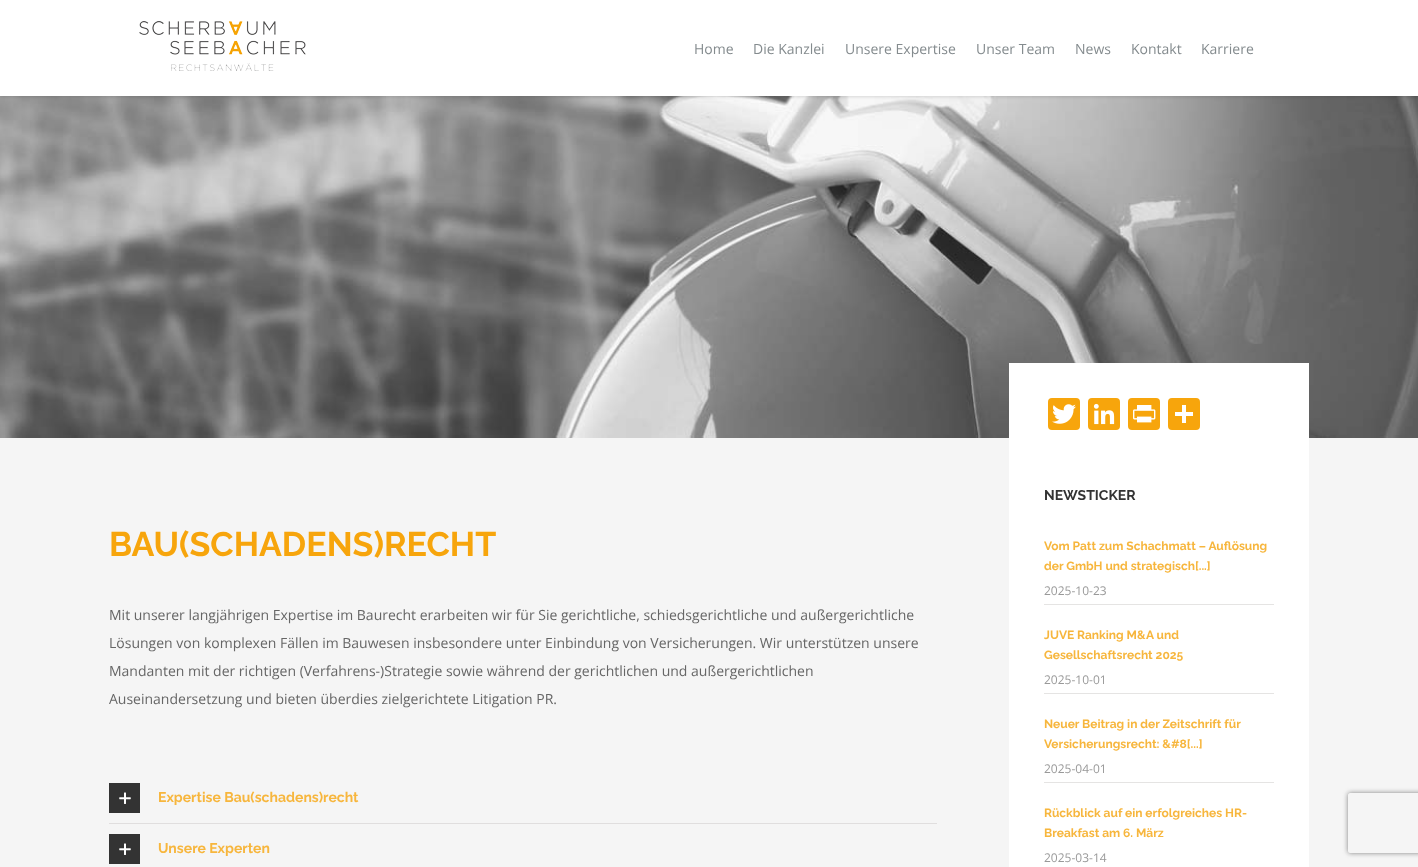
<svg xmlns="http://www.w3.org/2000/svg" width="1418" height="867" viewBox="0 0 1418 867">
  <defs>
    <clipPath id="clip1"><path d="M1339 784H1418V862H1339ZM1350 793H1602C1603 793 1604 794 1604 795V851C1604 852 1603 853 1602 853H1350C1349 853 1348 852 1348 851V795C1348 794 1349 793 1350 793Z" clip-rule="evenodd"/></clipPath>
  </defs>
  <rect width="100%" height="100%" fill="#f5f5f5"/>
  <image x="0" y="96" width="1418" height="342" href="img/2.png"/>
  <path d="M0 1h1418v96H0z" fill="#0000001f" filter="blur(1.5px)"/>
  <path d="M0 0h1418v96H0z" fill="#fff"/>
  <image x="139" y="21" width="167" height="50" href="img/1.png"/>
  <path d="M109 823h828v1H109z" fill="#e0dede"/>
  <path d="M109 783h31v30H109z" fill="#333"/>
  <image x="119" y="792" width="12" height="12" href="img/3.png"/>
  <path d="M109 834h31v30H109z" fill="#333"/>
  <image x="119" y="843" width="12" height="12" href="img/3.png"/>
  <path d="M1009 363h300v504H1009z" fill="#fff"/>
  <rect x="1048" y="398" width="32" height="32" rx="4" fill="#f7a50c"/>
  <image x="1052" y="404" width="24" height="20" href="img/4.png"/>
  <rect x="1088" y="398" width="32" height="32" rx="4" fill="#f7a50c"/>
  <image x="1093" y="403" width="22" height="22" href="img/5.png"/>
  <rect x="1128" y="398" width="32" height="32" rx="4" fill="#f7a50c"/>
  <image x="1133" y="405" width="23" height="18" href="img/6.png"/>
  <rect x="1168" y="398" width="32" height="32" rx="4" fill="#f7a50c"/>
  <path d="M1182 405h4v18H1182z" fill="#fff"/>
  <path d="M1175 412h18v4H1175z" fill="#fff"/>
  <path d="M1044 604h230v1H1044z" fill="#e5e4e3"/>
  <path d="M1044 693h230v1H1044z" fill="#e5e4e3"/>
  <path d="M1044 782h230v1H1044z" fill="#e5e4e3"/>
  <g clip-path="url(#clip1)">
    <rect x="1348" y="793" width="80" height="60" rx="2" fill="#808080" filter="blur(2.5px)"/>
  </g>
  <g font-family="Open Sans" font-size="14" fill="#848b8e">
    <text x="694" y="54">Home</text>
    <text x="753" y="54">Die Kanzlei</text>
    <text x="845" y="54">Unsere Expertise</text>
    <text x="976" y="54">Unser Team</text>
    <text x="1075" y="54">News</text>
    <text x="1131" y="54">Kontakt</text>
    <text x="1201" y="54">Karriere</text>
  </g>
  <text x="109" y="556" font-family="Raleway" font-size="34" font-weight="100" fill="#f7a50c">BAU(SCHADENS)RECHT</text>
  <g font-family="Open Sans" font-size="14" fill="#666">
    <text x="109" y="620">Mit unserer langjährigen Expertise im Baurecht erarbeiten wir für Sie gerichtliche, schiedsgerichtliche und außergerichtliche</text>
    <text x="109" y="648">Lösungen von komplexen Fällen im Bauwesen insbesondere unter Einbindung von Versicherungen. Wir unterstützen unsere</text>
    <text x="109" y="676">Mandanten mit der richtigen (Verfahrens-)Strategie sowie während der gerichtlichen und außergerichtlichen</text>
    <text x="109" y="704">Auseinandersetzung und bieten überdies zielgerichtete Litigation PR.</text>
  </g>
  <g font-family="Raleway" font-size="14" font-weight="100" fill="#f7b63d">
    <text x="158" y="802">Expertise Bau(schadens)recht</text>
    <text x="158" y="853">Unsere Experten</text>
  </g>
  <text x="1044" y="500" font-family="Raleway" font-size="14" font-weight="100" fill="#333">NEWSTICKER</text>
  <g font-family="Raleway" font-size="12" font-weight="100" fill="#f7b63d">
    <text x="1044" y="550">Vom Patt zum Schachmatt – Auflösung</text>
    <text x="1044" y="570">der GmbH und strategisch[...]</text>
  </g>
  <text x="1044" y="595" font-family="Open Sans" font-size="12" fill="#999">2025-10-23</text>
  <g font-family="Raleway" font-size="12" font-weight="100" fill="#f7b63d">
    <text x="1044" y="639">JUVE Ranking M&amp;A und</text>
    <text x="1044" y="659">Gesellschaftsrecht 2025</text>
  </g>
  <text x="1044" y="684" font-family="Open Sans" font-size="12" fill="#999">2025-10-01</text>
  <g font-family="Raleway" font-size="12" font-weight="100" fill="#f7b63d">
    <text x="1044" y="728">Neuer Beitrag in der Zeitschrift für</text>
    <text x="1044" y="748">Versicherungsrecht: &amp;#8[...]</text>
  </g>
  <text x="1044" y="773" font-family="Open Sans" font-size="12" fill="#999">2025-04-01</text>
  <g font-family="Raleway" font-size="12" font-weight="100" fill="#f7b63d">
    <text x="1044" y="817">Rückblick auf ein erfolgreiches HR-</text>
    <text x="1044" y="837">Breakfast am 6. März</text>
  </g>
  <text x="1044" y="862" font-family="Open Sans" font-size="12" fill="#999">2025-03-14</text>
</svg>
